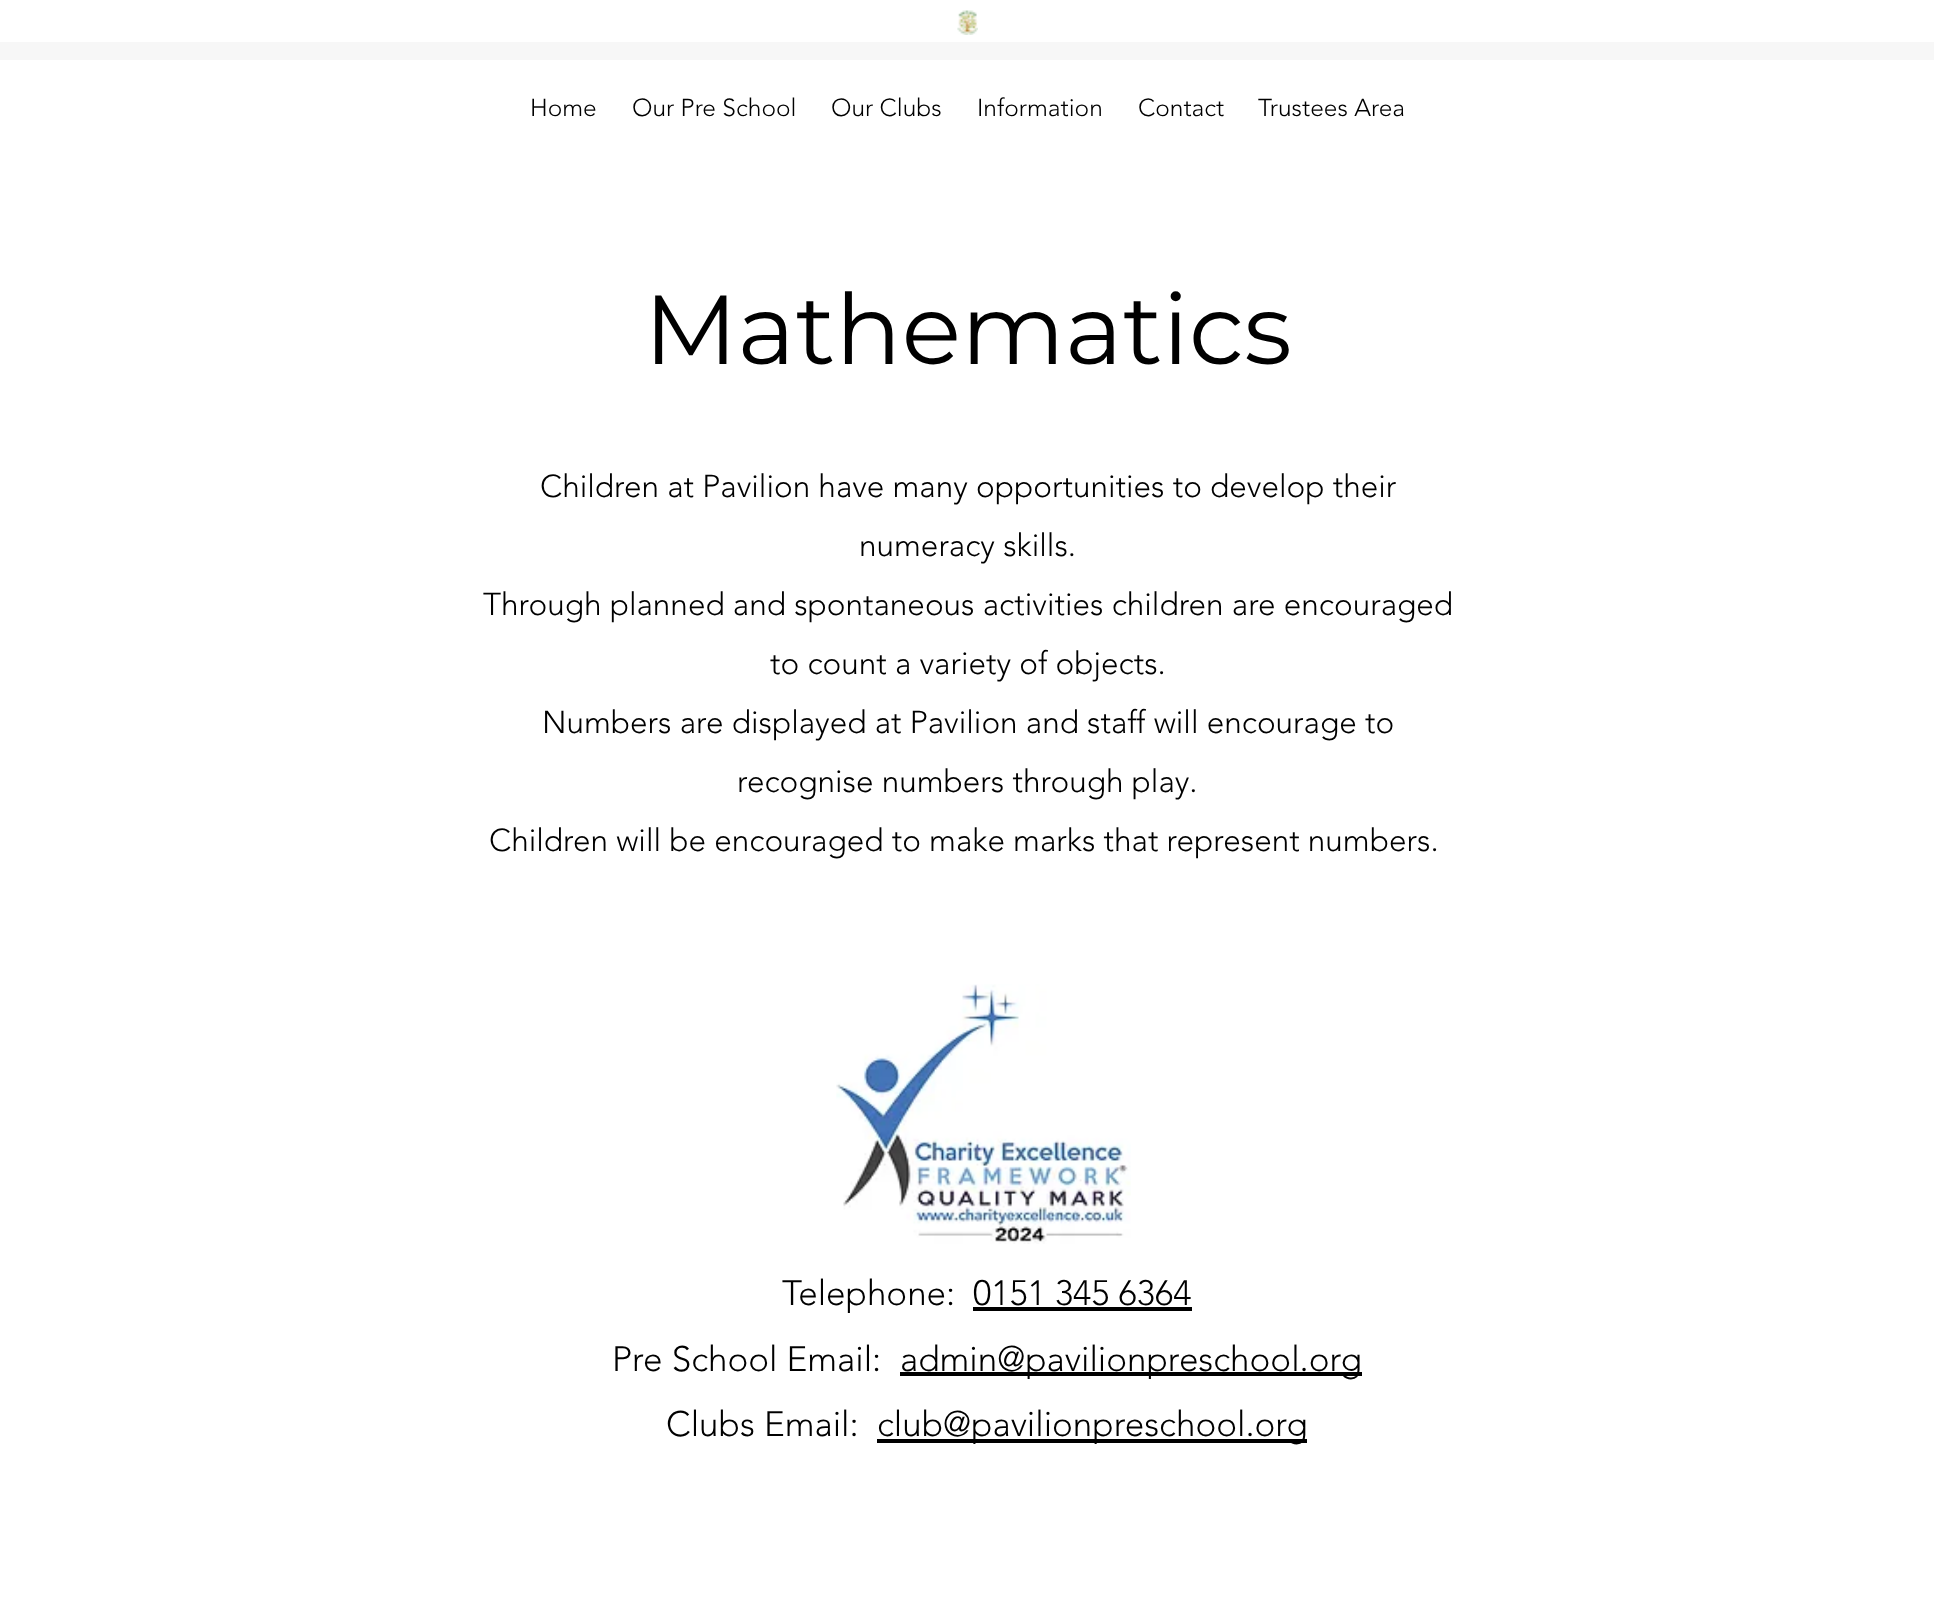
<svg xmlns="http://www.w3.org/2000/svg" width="1934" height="1611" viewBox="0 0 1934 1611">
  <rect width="100%" height="100%" fill="#fff"/>
  <image x="957" y="10" width="21" height="25" href="img/1.png"/>
  <path d="M0 42h1934v18H0z" fill="#f7f7f7"/>
  <image x="836" y="984" width="295" height="260" href="img/2.png"/>
  <path d="M973 1307h219v4H973z" fill="#000"/>
  <path d="M900 1372h462v4H900z" fill="#000"/>
  <path d="M877 1439h430v4H877z" fill="#000"/>
  <g font-family="'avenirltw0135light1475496'" font-size="24.5" font-weight="300" fill="#000">
    <text x="530" y="116">Home</text>
    <text x="632" y="116">Our Pre School</text>
    <text x="831" y="116">Our Clubs</text>
    <text x="977" y="116">Information</text>
    <text x="1138" y="116">Contact</text>
    <text x="1258" y="116">Trustees Area</text>
  </g>
  <text x="644" y="364" font-family="Montserrat" font-size="98" fill="#000">Mathematics</text>
  <g font-family="'avenirltw0135light1475496'" font-size="31.5" font-weight="300" fill="#000">
    <text x="540" y="497">Children at Pavilion have many opportunities to develop their</text>
    <text x="859" y="556">numeracy skills.</text>
    <text x="483" y="615">Through planned and spontaneous activities children are encouraged</text>
    <text x="770" y="674">to count a variety of objects.</text>
    <text x="542" y="733">Numbers are displayed at Pavilion and staff will encourage to</text>
    <text x="737" y="792">recognise numbers through play.</text>
    <text x="489" y="851">Children will be encouraged to make marks that represent numbers.</text>
  </g>
  <g font-family="'avenirltw0135light1475496'" font-size="35" font-weight="300" fill="#000">
    <text x="782" y="1305">Telephone:</text>
    <text x="973" y="1305">0151 345 6364</text>
    <text x="612" y="1371">Pre School Email:</text>
    <text x="900" y="1371">admin@pavilionpreschool.org</text>
    <text x="666" y="1436">Clubs Email:</text>
    <text x="877" y="1436">club@pavilionpreschool.org</text>
  </g>
</svg>
